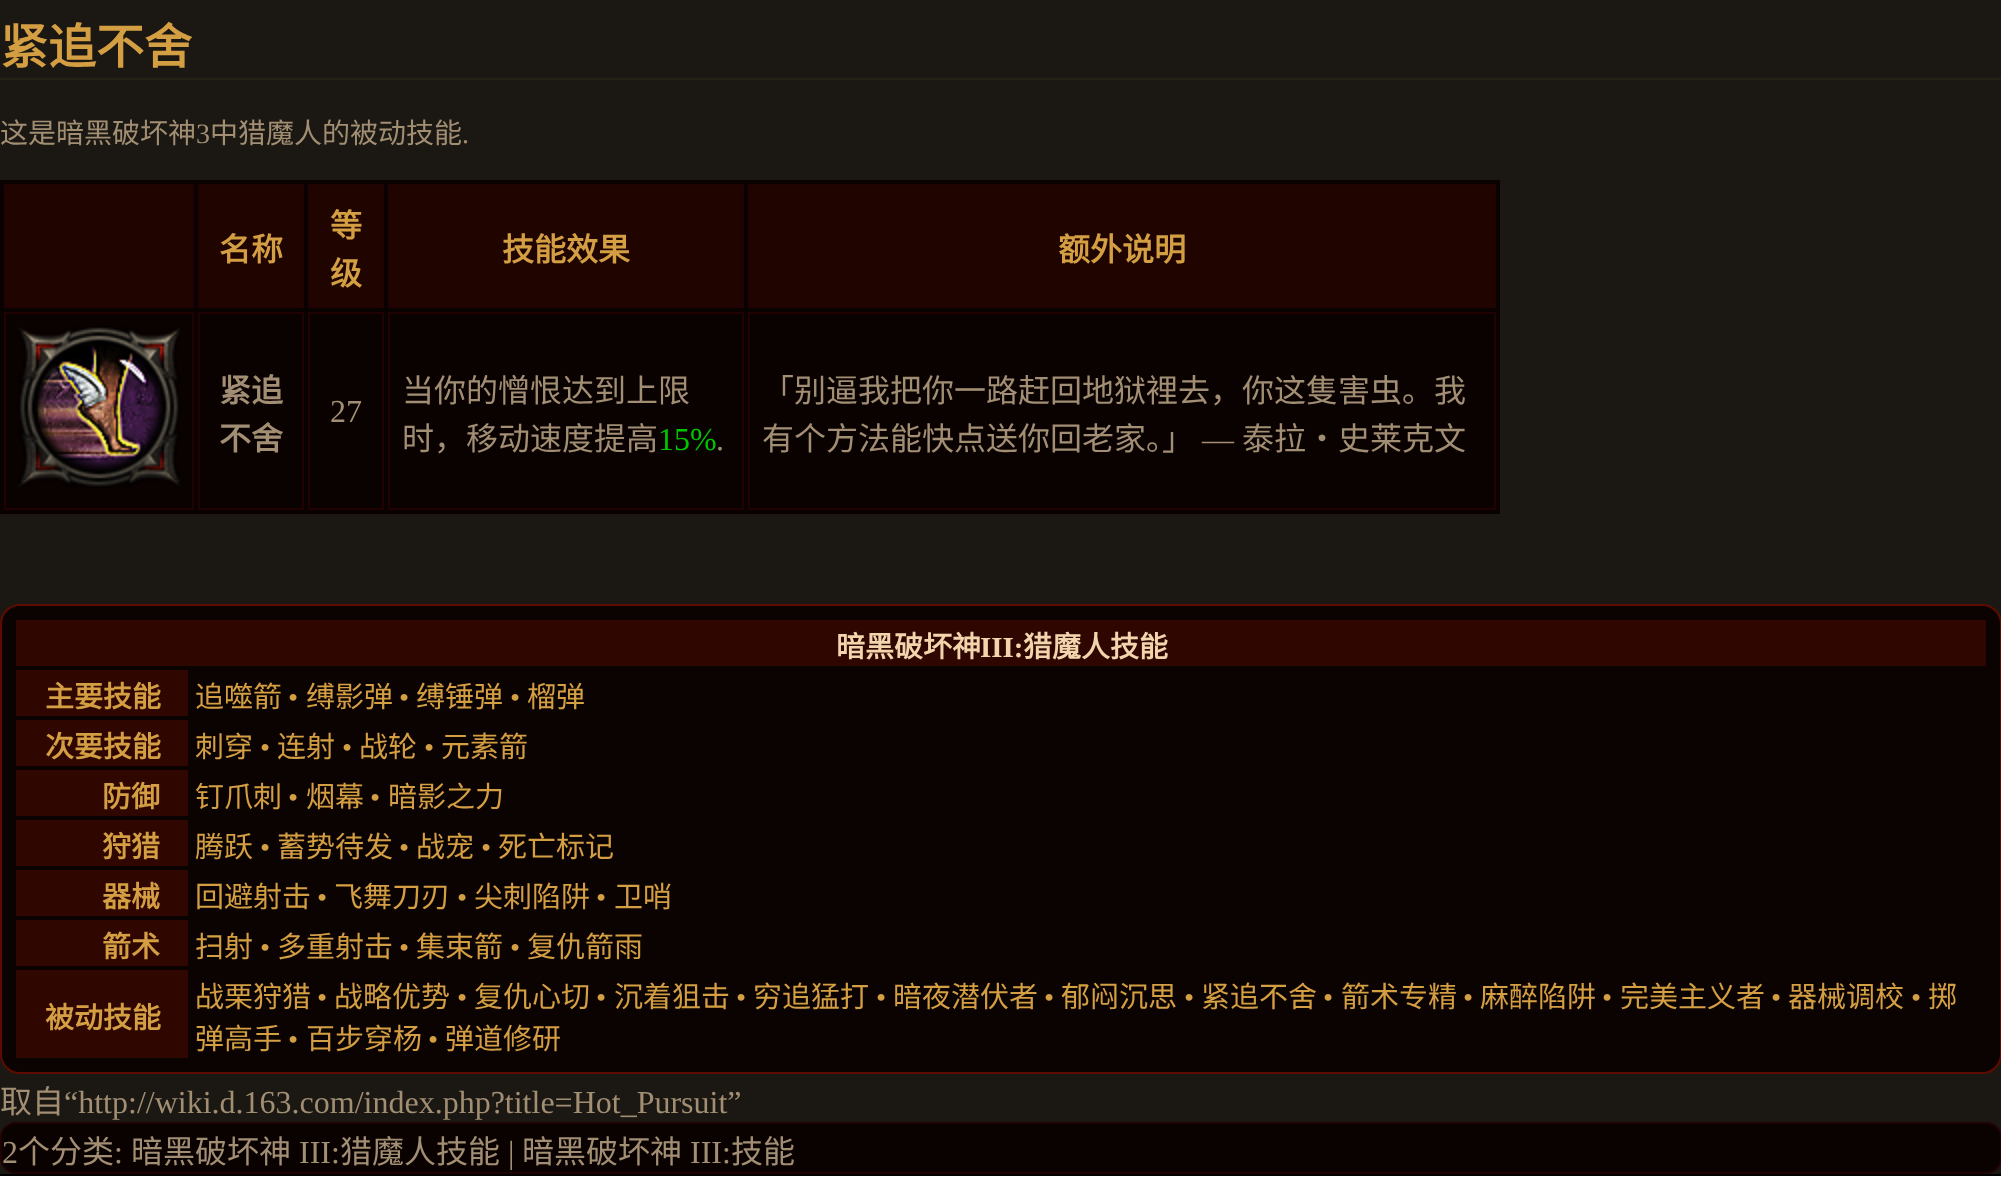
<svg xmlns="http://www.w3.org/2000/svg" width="2001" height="1182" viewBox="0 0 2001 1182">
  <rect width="100%" height="100%" fill="#1b1813"/>
  <path d="M0 78h2001v2H0z" fill="#262115"/>
  <path d="M0 180h1500v334H0z" fill="#0a0101"/>
  <path d="M5 185h188v122H5z" fill="#1f0400" stroke="#210202" stroke-width="2"/>
  <path d="M199 185h104v122H199z" fill="#1f0400" stroke="#210202" stroke-width="2"/>
  <path d="M309 185h74v122H309z" fill="#1f0400" stroke="#210202" stroke-width="2"/>
  <path d="M389 185h354v122H389z" fill="#1f0400" stroke="#210202" stroke-width="2"/>
  <path d="M749 185h746v122H749z" fill="#1f0400" stroke="#210202" stroke-width="2"/>
  <path d="M5 313h188v196H5z" fill="none" stroke="#210202" stroke-width="2"/>
  <image x="18" y="326" width="162" height="162" href="img/1.png"/>
  <path d="M199 313h104v196H199z" fill="none" stroke="#210202" stroke-width="2"/>
  <path d="M309 313h74v196H309z" fill="none" stroke="#210202" stroke-width="2"/>
  <path d="M389 313h354v196H389z" fill="none" stroke="#210202" stroke-width="2"/>
  <path d="M749 313h746v196H749z" fill="none" stroke="#210202" stroke-width="2"/>
  <rect x="1" y="605" width="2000" height="468" rx="19" fill="#0b0202" stroke="#5e0c00" stroke-width="2"/>
  <path d="M16 620h1970v46H16z" fill="#2f0600"/>
  <path d="M16 670h172v46H16z" fill="#2f0600"/>
  <path d="M16 720h172v46H16z" fill="#2f0600"/>
  <path d="M16 770h172v46H16z" fill="#2f0600"/>
  <path d="M16 820h172v46H16z" fill="#2f0600"/>
  <path d="M16 870h172v46H16z" fill="#2f0600"/>
  <path d="M16 920h172v46H16z" fill="#2f0600"/>
  <path d="M16 970h172v88H16z" fill="#2f0600"/>
  <rect x="1" y="1123" width="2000" height="50" rx="15" fill="#0a0101" stroke="#210202" stroke-width="2"/>
  <path d="M0 1176h2001v6H0z" fill="#fff"/>
  <path d="M0 1174h2001v2H0z" fill="#000"/>
  <text x="0" y="64" font-family="Noto Sans CJK SC" font-size="48" font-weight="bold" fill="#d49e43">紧追不舍</text>
  <text x="0" y="143" font-family="Noto Sans CJK SC" font-size="28" fill="#a18e73">这是暗黑破坏神</text>
  <text x="196" y="143" font-family="Liberation Serif" font-size="28" fill="#a18e73">3</text>
  <text x="210" y="143" font-family="Noto Sans CJK SC" font-size="28" fill="#a18e73">中猎魔人的被动技能</text>
  <text x="462" y="143" font-family="Liberation Serif" font-size="28" fill="#a18e73">.</text>
  <g font-family="Noto Sans CJK SC" font-size="32" font-weight="bold" fill="#d49e43">
    <text x="219" y="261">名称</text>
    <text x="330" y="237">等</text>
    <text x="330" y="285">级</text>
    <text x="502" y="261">技能效果</text>
    <text x="1058" y="261">额外说明</text>
  </g>
  <g font-family="Noto Sans CJK SC" font-size="32" font-weight="bold" fill="#a18e73">
    <text x="219" y="402">紧追</text>
    <text x="219" y="450">不舍</text>
  </g>
  <text x="330" y="422" font-family="Liberation Serif" font-size="32" fill="#a18e73">27</text>
  <g font-family="Noto Sans CJK SC" font-size="32" fill="#a18e73">
    <text x="402" y="402">当你的憎恨达到上限</text>
    <text x="402" y="450">时，移动速度提高</text>
  </g>
  <text x="658" y="450" font-family="Liberation Serif" font-size="32" fill="#00c400">15%</text>
  <text x="716" y="450" font-family="Liberation Serif" font-size="32" fill="#a18e73">.</text>
  <g font-family="Noto Sans CJK SC" font-size="32" fill="#a18e73">
    <text x="762" y="402">「别逼我把你一路赶回地狱裡去，你这隻害虫。我</text>
    <text x="762" y="450">有个方法能快点送你回老家。」</text>
  </g>
  <text x="1202" y="450" font-family="Liberation Serif" font-size="32" fill="#a18e73">—</text>
  <text x="1242" y="450" font-family="Noto Sans CJK SC" font-size="32" fill="#a18e73">泰拉‧史莱克文</text>
  <text x="836" y="657" font-family="Noto Sans CJK SC" font-size="29" font-weight="bold" fill="#f2d5ad">暗黑破坏神</text>
  <text x="980" y="657" font-family="Liberation Serif" font-size="29" font-weight="bold" fill="#f2d5ad">III:</text>
  <text x="1023" y="657" font-family="Noto Sans CJK SC" font-size="29" font-weight="bold" fill="#f2d5ad">猎魔人技能</text>
  <text x="45" y="707" font-family="Noto Sans CJK SC" font-size="29" font-weight="bold" fill="#d49e43">主要技能</text>
  <text x="195" y="707" font-family="Noto Sans CJK SC" font-size="29" fill="#d49e43">追噬箭</text>
  <text x="288" y="707" font-family="Liberation Serif" font-size="29" fill="#d49e43">•</text>
  <text x="306" y="707" font-family="Noto Sans CJK SC" font-size="29" fill="#d49e43">缚影弹</text>
  <text x="399" y="707" font-family="Liberation Serif" font-size="29" fill="#d49e43">•</text>
  <text x="416" y="707" font-family="Noto Sans CJK SC" font-size="29" fill="#d49e43">缚锤弹</text>
  <text x="510" y="707" font-family="Liberation Serif" font-size="29" fill="#d49e43">•</text>
  <text x="527" y="707" font-family="Noto Sans CJK SC" font-size="29" fill="#d49e43">榴弹</text>
  <text x="45" y="757" font-family="Noto Sans CJK SC" font-size="29" font-weight="bold" fill="#d49e43">次要技能</text>
  <text x="195" y="757" font-family="Noto Sans CJK SC" font-size="29" fill="#d49e43">刺穿</text>
  <text x="260" y="757" font-family="Liberation Serif" font-size="29" fill="#d49e43">•</text>
  <text x="277" y="757" font-family="Noto Sans CJK SC" font-size="29" fill="#d49e43">连射</text>
  <text x="342" y="757" font-family="Liberation Serif" font-size="29" fill="#d49e43">•</text>
  <text x="359" y="757" font-family="Noto Sans CJK SC" font-size="29" fill="#d49e43">战轮</text>
  <text x="424" y="757" font-family="Liberation Serif" font-size="29" fill="#d49e43">•</text>
  <text x="441" y="757" font-family="Noto Sans CJK SC" font-size="29" fill="#d49e43">元素箭</text>
  <text x="102" y="807" font-family="Noto Sans CJK SC" font-size="29" font-weight="bold" fill="#d49e43">防御</text>
  <text x="195" y="807" font-family="Noto Sans CJK SC" font-size="29" fill="#d49e43">钉爪刺</text>
  <text x="288" y="807" font-family="Liberation Serif" font-size="29" fill="#d49e43">•</text>
  <text x="306" y="807" font-family="Noto Sans CJK SC" font-size="29" fill="#d49e43">烟幕</text>
  <text x="370" y="807" font-family="Liberation Serif" font-size="29" fill="#d49e43">•</text>
  <text x="388" y="807" font-family="Noto Sans CJK SC" font-size="29" fill="#d49e43">暗影之力</text>
  <text x="102" y="857" font-family="Noto Sans CJK SC" font-size="29" font-weight="bold" fill="#d49e43">狩猎</text>
  <text x="195" y="857" font-family="Noto Sans CJK SC" font-size="29" fill="#d49e43">腾跃</text>
  <text x="260" y="857" font-family="Liberation Serif" font-size="29" fill="#d49e43">•</text>
  <text x="277" y="857" font-family="Noto Sans CJK SC" font-size="29" fill="#d49e43">蓄势待发</text>
  <text x="399" y="857" font-family="Liberation Serif" font-size="29" fill="#d49e43">•</text>
  <text x="416" y="857" font-family="Noto Sans CJK SC" font-size="29" fill="#d49e43">战宠</text>
  <text x="481" y="857" font-family="Liberation Serif" font-size="29" fill="#d49e43">•</text>
  <text x="498" y="857" font-family="Noto Sans CJK SC" font-size="29" fill="#d49e43">死亡标记</text>
  <text x="102" y="907" font-family="Noto Sans CJK SC" font-size="29" font-weight="bold" fill="#d49e43">器械</text>
  <text x="195" y="907" font-family="Noto Sans CJK SC" font-size="29" fill="#d49e43">回避射击</text>
  <text x="317" y="907" font-family="Liberation Serif" font-size="29" fill="#d49e43">•</text>
  <text x="334" y="907" font-family="Noto Sans CJK SC" font-size="29" fill="#d49e43">飞舞刀刃</text>
  <text x="457" y="907" font-family="Liberation Serif" font-size="29" fill="#d49e43">•</text>
  <text x="474" y="907" font-family="Noto Sans CJK SC" font-size="29" fill="#d49e43">尖刺陷阱</text>
  <text x="596" y="907" font-family="Liberation Serif" font-size="29" fill="#d49e43">•</text>
  <text x="614" y="907" font-family="Noto Sans CJK SC" font-size="29" fill="#d49e43">卫哨</text>
  <text x="102" y="957" font-family="Noto Sans CJK SC" font-size="29" font-weight="bold" fill="#d49e43">箭术</text>
  <text x="195" y="957" font-family="Noto Sans CJK SC" font-size="29" fill="#d49e43">扫射</text>
  <text x="260" y="957" font-family="Liberation Serif" font-size="29" fill="#d49e43">•</text>
  <text x="277" y="957" font-family="Noto Sans CJK SC" font-size="29" fill="#d49e43">多重射击</text>
  <text x="399" y="957" font-family="Liberation Serif" font-size="29" fill="#d49e43">•</text>
  <text x="416" y="957" font-family="Noto Sans CJK SC" font-size="29" fill="#d49e43">集束箭</text>
  <text x="510" y="957" font-family="Liberation Serif" font-size="29" fill="#d49e43">•</text>
  <text x="527" y="957" font-family="Noto Sans CJK SC" font-size="29" fill="#d49e43">复仇箭雨</text>
  <text x="45" y="1028" font-family="Noto Sans CJK SC" font-size="29" font-weight="bold" fill="#d49e43">被动技能</text>
  <text x="195" y="1007" font-family="Noto Sans CJK SC" font-size="29" fill="#d49e43">战栗狩猎</text>
  <text x="317" y="1007" font-family="Liberation Serif" font-size="29" fill="#d49e43">•</text>
  <text x="334" y="1007" font-family="Noto Sans CJK SC" font-size="29" fill="#d49e43">战略优势</text>
  <text x="457" y="1007" font-family="Liberation Serif" font-size="29" fill="#d49e43">•</text>
  <text x="474" y="1007" font-family="Noto Sans CJK SC" font-size="29" fill="#d49e43">复仇心切</text>
  <text x="596" y="1007" font-family="Liberation Serif" font-size="29" fill="#d49e43">•</text>
  <text x="614" y="1007" font-family="Noto Sans CJK SC" font-size="29" fill="#d49e43">沉着狙击</text>
  <text x="736" y="1007" font-family="Liberation Serif" font-size="29" fill="#d49e43">•</text>
  <text x="753" y="1007" font-family="Noto Sans CJK SC" font-size="29" fill="#d49e43">穷追猛打</text>
  <text x="876" y="1007" font-family="Liberation Serif" font-size="29" fill="#d49e43">•</text>
  <text x="893" y="1007" font-family="Noto Sans CJK SC" font-size="29" fill="#d49e43">暗夜潜伏者</text>
  <text x="1044" y="1007" font-family="Liberation Serif" font-size="29" fill="#d49e43">•</text>
  <text x="1061" y="1007" font-family="Noto Sans CJK SC" font-size="29" fill="#d49e43">郁闷沉思</text>
  <text x="1184" y="1007" font-family="Liberation Serif" font-size="29" fill="#d49e43">•</text>
  <text x="1201" y="1007" font-family="Noto Sans CJK SC" font-size="29" fill="#d49e43">紧追不舍</text>
  <text x="1323" y="1007" font-family="Liberation Serif" font-size="29" fill="#d49e43">•</text>
  <text x="1341" y="1007" font-family="Noto Sans CJK SC" font-size="29" fill="#d49e43">箭术专精</text>
  <text x="1463" y="1007" font-family="Liberation Serif" font-size="29" fill="#d49e43">•</text>
  <text x="1480" y="1007" font-family="Noto Sans CJK SC" font-size="29" fill="#d49e43">麻醉陷阱</text>
  <text x="1602" y="1007" font-family="Liberation Serif" font-size="29" fill="#d49e43">•</text>
  <text x="1620" y="1007" font-family="Noto Sans CJK SC" font-size="29" fill="#d49e43">完美主义者</text>
  <text x="1771" y="1007" font-family="Liberation Serif" font-size="29" fill="#d49e43">•</text>
  <text x="1788" y="1007" font-family="Noto Sans CJK SC" font-size="29" fill="#d49e43">器械调校</text>
  <text x="1911" y="1007" font-family="Liberation Serif" font-size="29" fill="#d49e43">•</text>
  <g font-family="Noto Sans CJK SC" font-size="29" fill="#d49e43">
    <text x="1928" y="1007">掷</text>
    <text x="195" y="1049">弹高手</text>
  </g>
  <text x="288" y="1049" font-family="Liberation Serif" font-size="29" fill="#d49e43">•</text>
  <text x="306" y="1049" font-family="Noto Sans CJK SC" font-size="29" fill="#d49e43">百步穿杨</text>
  <text x="428" y="1049" font-family="Liberation Serif" font-size="29" fill="#d49e43">•</text>
  <text x="445" y="1049" font-family="Noto Sans CJK SC" font-size="29" fill="#d49e43">弹道修研</text>
  <text x="0" y="1113" font-family="Noto Sans CJK SC" font-size="32" fill="#a18e73">取自</text>
  <g font-family="Liberation Serif" font-size="32" fill="#a18e73">
    <text x="64" y="1113">“http://wiki.d.163.com/index.php?title=Hot_Pursuit”</text>
    <text x="2" y="1163">2</text>
  </g>
  <text x="18" y="1163" font-family="Noto Sans CJK SC" font-size="32" fill="#a18e73">个分类</text>
  <text x="114" y="1163" font-family="Liberation Serif" font-size="32" fill="#a18e73">:</text>
  <text x="131" y="1163" font-family="Noto Sans CJK SC" font-size="32" fill="#a18e73">暗黑破坏神</text>
  <text x="299" y="1163" font-family="Liberation Serif" font-size="32" fill="#a18e73">III:</text>
  <text x="340" y="1163" font-family="Noto Sans CJK SC" font-size="32" fill="#a18e73">猎魔人技能</text>
  <text x="508" y="1163" font-family="Liberation Serif" font-size="32" fill="#a18e73">|</text>
  <text x="522" y="1163" font-family="Noto Sans CJK SC" font-size="32" fill="#a18e73">暗黑破坏神</text>
  <text x="690" y="1163" font-family="Liberation Serif" font-size="32" fill="#a18e73">III:</text>
  <text x="731" y="1163" font-family="Noto Sans CJK SC" font-size="32" fill="#a18e73">技能</text>
</svg>
